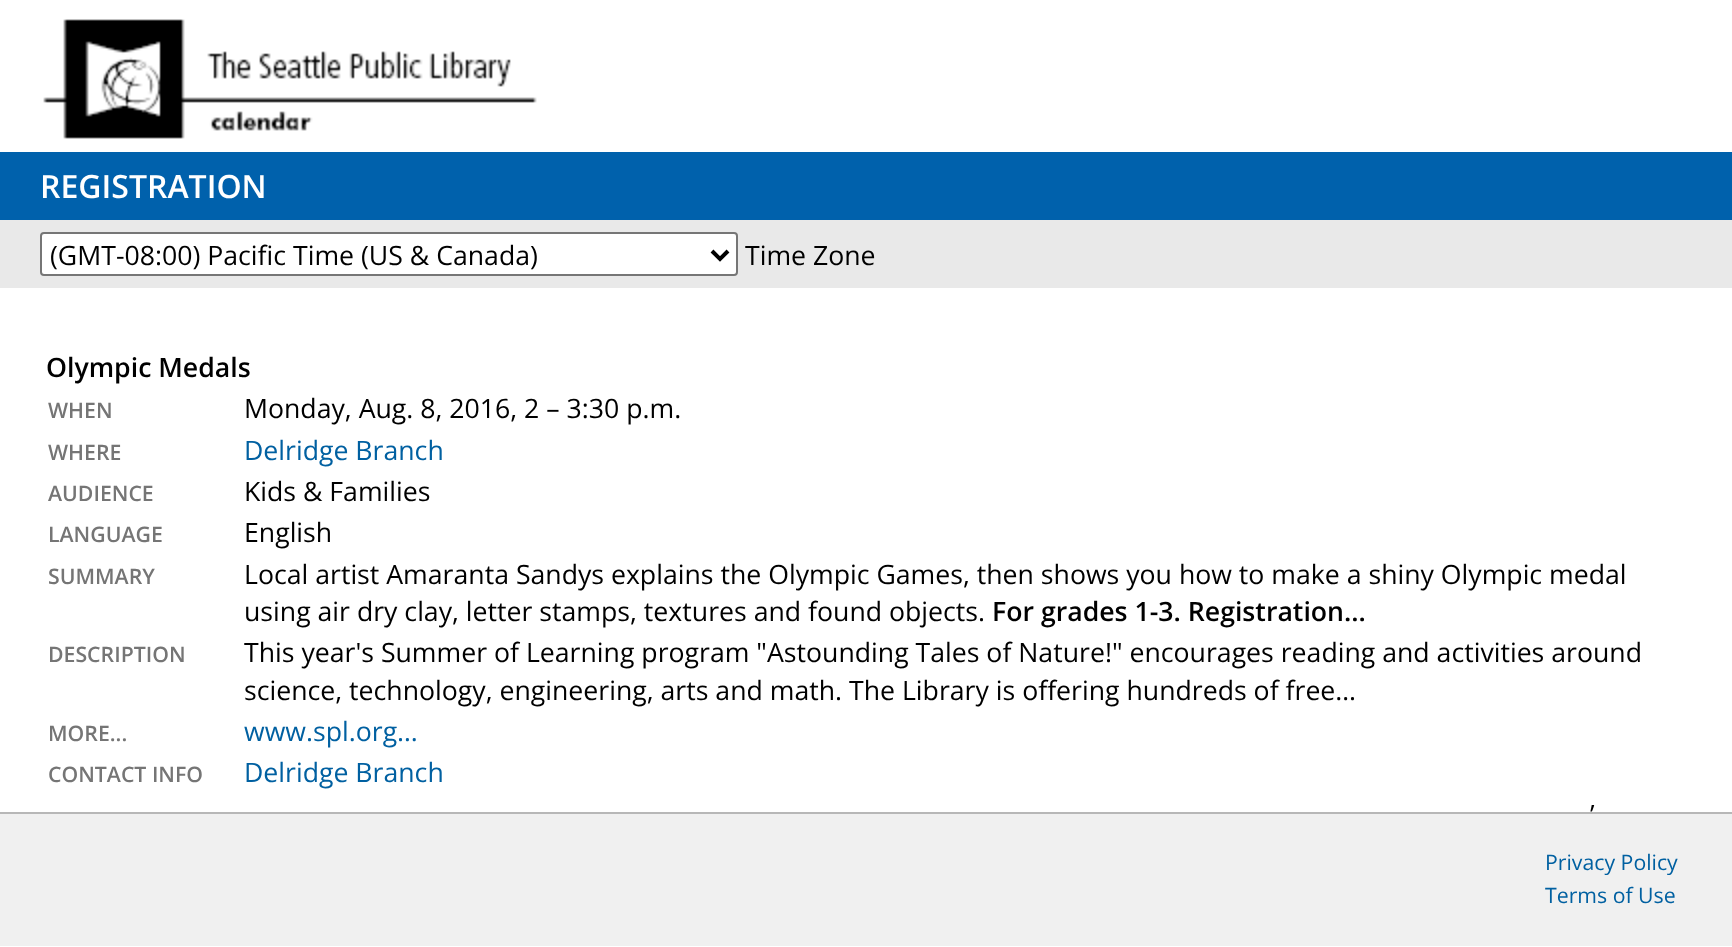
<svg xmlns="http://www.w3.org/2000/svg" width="1732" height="947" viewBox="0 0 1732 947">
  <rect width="100%" height="100%" fill="#fff"/>
  <image x="43" y="19" width="494" height="120" href="img/1.png"/>
  <path d="M0 152h1732v68H0z" fill="#0061ac"/>
  <path d="M0 220h1732v68H0z" fill="#e9e9e9"/>
  <rect x="41" y="233" width="696" height="42" rx="3" fill="#fff" stroke="#767676" stroke-width="2"/>
  <path d="M712 251L720 259L728 251" fill="none" stroke="#000" stroke-width="4"/>
  <path d="M0 814h1732v132H0z" fill="#f0f0f0"/>
  <path d="M0 812h1732v2H0z" fill="#b7b7b7"/>
  <text x="40" y="198" font-family="Open Sans" font-size="32" font-weight="600" fill="#fff">REGISTRATION</text>
  <g font-family="Open Sans" font-size="26.67" fill="#000">
    <text x="50" y="265">(GMT-08:00) Pacific Time (US &amp; Canada)</text>
    <text x="745" y="265">Time Zone</text>
  </g>
  <text x="46" y="377" font-family="Open Sans" font-size="26.67" font-weight="600" fill="#000">Olympic Medals</text>
  <text x="48" y="418" font-family="Open Sans" font-size="21.25" font-weight="600" fill="#757575">WHEN</text>
  <text x="244" y="418" font-family="Open Sans" font-size="26.67" fill="#000">Monday, Aug. 8, 2016, 2 – 3:30 p.m.</text>
  <text x="48" y="460" font-family="Open Sans" font-size="21.25" font-weight="600" fill="#757575">WHERE</text>
  <text x="244" y="460" font-family="Open Sans" font-size="26.67" fill="#0060a1">Delridge Branch</text>
  <text x="48" y="501" font-family="Open Sans" font-size="21.25" font-weight="600" fill="#757575">AUDIENCE</text>
  <text x="244" y="501" font-family="Open Sans" font-size="26.67" fill="#000">Kids &amp; Families</text>
  <text x="48" y="542" font-family="Open Sans" font-size="21.25" font-weight="600" fill="#757575">LANGUAGE</text>
  <text x="244" y="542" font-family="Open Sans" font-size="26.67" fill="#000">English</text>
  <text x="48" y="584" font-family="Open Sans" font-size="21.25" font-weight="600" fill="#757575">SUMMARY</text>
  <g font-family="Open Sans" font-size="26.67" fill="#000">
    <text x="244" y="584">Local artist Amaranta Sandys explains the Olympic Games, then shows you how to make a shiny Olympic medal</text>
    <text x="244" y="621">using air dry clay, letter stamps, textures and found objects.</text>
  </g>
  <text x="992" y="621" font-family="Open Sans" font-size="26.67" font-weight="600" fill="#000">For grades 1-3. Registration…</text>
  <text x="48" y="662" font-family="Open Sans" font-size="21.25" font-weight="600" fill="#757575">DESCRIPTION</text>
  <g font-family="Open Sans" font-size="26.67" fill="#000">
    <text x="244" y="662">This year's Summer of Learning program "Astounding Tales of Nature!" encourages reading and activities around</text>
    <text x="244" y="700">science, technology, engineering, arts and math. The Library is offering hundreds of free…</text>
  </g>
  <text x="48" y="741" font-family="Open Sans" font-size="21.25" font-weight="600" fill="#757575">MORE...</text>
  <text x="244" y="741" font-family="Open Sans" font-size="26.67" fill="#0060a1">www.spl.org…</text>
  <text x="48" y="782" font-family="Open Sans" font-size="21.25" font-weight="600" fill="#757575">CONTACT INFO</text>
  <text x="244" y="782" font-family="Open Sans" font-size="26.67" fill="#0060a1">Delridge Branch</text>
  <text x="1590" y="824" font-family="Open Sans" font-size="26.67" fill="#000">’</text>
  <g font-family="Open Sans" font-size="21.25" fill="#0060a1">
    <text x="1545" y="870">Privacy Policy</text>
    <text x="1545" y="903">Terms of Use</text>
  </g>
</svg>
